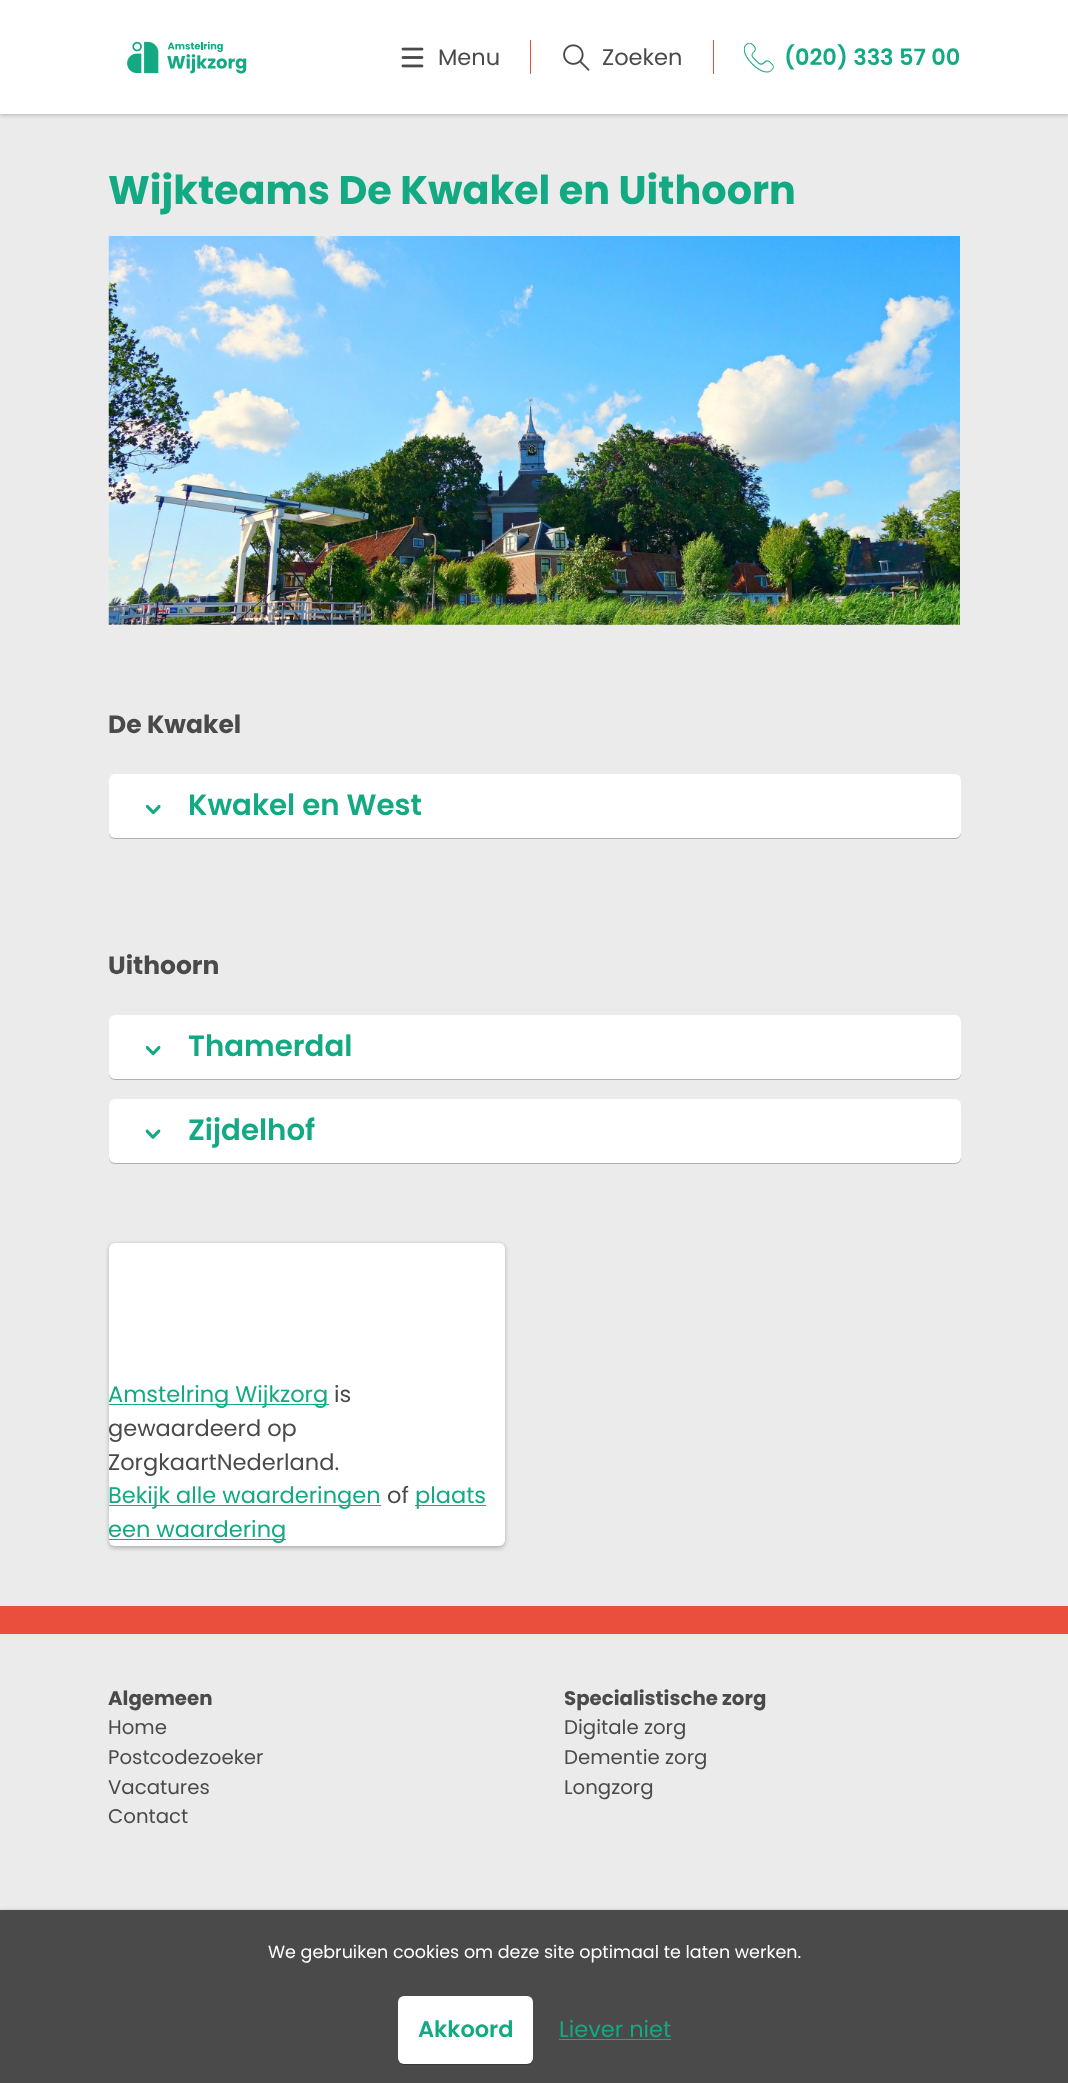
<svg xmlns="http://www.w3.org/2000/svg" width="1068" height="2083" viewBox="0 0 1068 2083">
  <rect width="100%" height="100%" fill="#ebebeb"/>
  <path d="M0 1h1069v114H0z" fill="#00000040" filter="blur(2px)"/>
  <path d="M0 0h1068v114H0z" fill="#fff"/>
  <image x="127" y="41" width="120" height="33" href="img/1.png"/>
  <image x="401" y="47" width="23" height="21" href="img/2.png"/>
  <path d="M530 40h1v34H530z" fill="#ea4f3d"/>
  <image x="563" y="44" width="27" height="27" href="img/3.png"/>
  <path d="M713 40h1v34H713z" fill="#ea4f3d"/>
  <image x="744" y="43" width="30" height="30" href="img/4.png"/>
  <image x="108" y="236" width="852" height="389" href="img/5.png"/>
  <rect x="109" y="775" width="852" height="64" rx="6" fill="#00000040" filter="blur(0.5px)"/>
  <rect x="109" y="774" width="852" height="64" rx="6" fill="#fff"/>
  <image x="145" y="804" width="16" height="11" href="img/6.png"/>
  <rect x="109" y="1016" width="852" height="64" rx="6" fill="#00000040" filter="blur(0.5px)"/>
  <rect x="109" y="1015" width="852" height="64" rx="6" fill="#fff"/>
  <image x="145" y="1045" width="16" height="11" href="img/7.png"/>
  <rect x="109" y="1100" width="852" height="64" rx="6" fill="#00000040" filter="blur(0.5px)"/>
  <rect x="109" y="1099" width="852" height="64" rx="6" fill="#fff"/>
  <image x="145" y="1129" width="16" height="10" href="img/8.png"/>
  <rect x="109" y="1244" width="396" height="304" rx="6" fill="#00000040" filter="blur(2px)"/>
  <rect x="109" y="1243" width="396" height="303" rx="6" fill="#fff"/>
  <path d="M109 1404h220v1H109z" fill="#13a983"/>
  <path d="M109 1505h272v1H109z" fill="#13a983"/>
  <path d="M415 1505h71v1H415z" fill="#13a983"/>
  <path d="M109 1539h177v1H109z" fill="#13a983"/>
  <path d="M0 1606h1068v28H0z" fill="#ea4f3d"/>
  <path d="M0 1911h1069v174H0z" fill="#00000040" filter="blur(2px)"/>
  <path d="M0 1910h1068v173H0z" fill="#4a4a4a"/>
  <rect x="398" y="1998" width="135" height="67" rx="6" fill="#00000040" filter="blur(0.5px)"/>
  <rect x="398" y="1996" width="135" height="68" rx="6" fill="#fff"/>
  <path d="M559 2039h112v1H559z" fill="#13a983"/>
  <g font-family="Poppins" font-size="22.5" fill="#4a4a4a">
    <text x="438" y="65">Menu</text>
    <text x="602" y="65">Zoeken</text>
  </g>
  <text x="784" y="65" font-family="Poppins" font-size="22.5" font-weight="600" fill="#13a983">(020) 333 57 00</text>
  <text x="108" y="204" font-family="Poppins" font-size="39.8" font-weight="bold" fill="#13a983">Wijkteams De Kwakel en Uithoorn</text>
  <text x="108" y="733" font-family="Poppins" font-size="25" font-weight="bold" fill="#4a4a4a">De Kwakel</text>
  <text x="188" y="815" font-family="Poppins" font-size="29.25" font-weight="600" fill="#13a983">Kwakel en West</text>
  <text x="108" y="974" font-family="Poppins" font-size="25" font-weight="bold" fill="#4a4a4a">Uithoorn</text>
  <g font-family="Poppins" font-size="29.25" font-weight="600" fill="#13a983">
    <text x="188" y="1056">Thamerdal</text>
    <text x="188" y="1140">Zijdelhof</text>
  </g>
  <text x="108" y="1402" font-family="Poppins" font-size="22.5" fill="#13a983">Amstelring Wijkzorg</text>
  <g font-family="Poppins" font-size="22.5" fill="#4a4a4a">
    <text x="334" y="1402">is</text>
    <text x="108" y="1436">gewaardeerd op</text>
    <text x="108" y="1470">ZorgkaartNederland.</text>
  </g>
  <text x="108" y="1503" font-family="Poppins" font-size="22.5" fill="#13a983">Bekijk alle waarderingen</text>
  <text x="387" y="1503" font-family="Poppins" font-size="22.5" fill="#4a4a4a">of</text>
  <g font-family="Poppins" font-size="22.5" fill="#13a983">
    <text x="415" y="1503">plaats</text>
    <text x="108" y="1537">een waardering</text>
  </g>
  <text x="108" y="1705" font-family="Poppins" font-size="19.75" font-weight="bold" fill="#4a4a4a">Algemeen</text>
  <g font-family="Poppins" font-size="19.75" fill="#4a4a4a">
    <text x="108" y="1734">Home</text>
    <text x="108" y="1764">Postcodezoeker</text>
    <text x="108" y="1794">Vacatures</text>
    <text x="108" y="1823">Contact</text>
  </g>
  <text x="564" y="1705" font-family="Poppins" font-size="19.75" font-weight="bold" fill="#4a4a4a">Specialistische zorg</text>
  <g font-family="Poppins" font-size="19.75" fill="#4a4a4a">
    <text x="564" y="1734">Digitale zorg</text>
    <text x="564" y="1764">Dementie zorg</text>
    <text x="564" y="1794">Longzorg</text>
  </g>
  <text x="268" y="1958" font-family="Poppins" font-size="17.5" fill="#fff">We gebruiken cookies om deze site optimaal te laten werken.</text>
  <text x="418" y="2037" font-family="Poppins" font-size="22.5" font-weight="600" fill="#13a983">Akkoord</text>
  <text x="559" y="2037" font-family="Poppins" font-size="22.5" fill="#13a983">Liever niet</text>
</svg>
